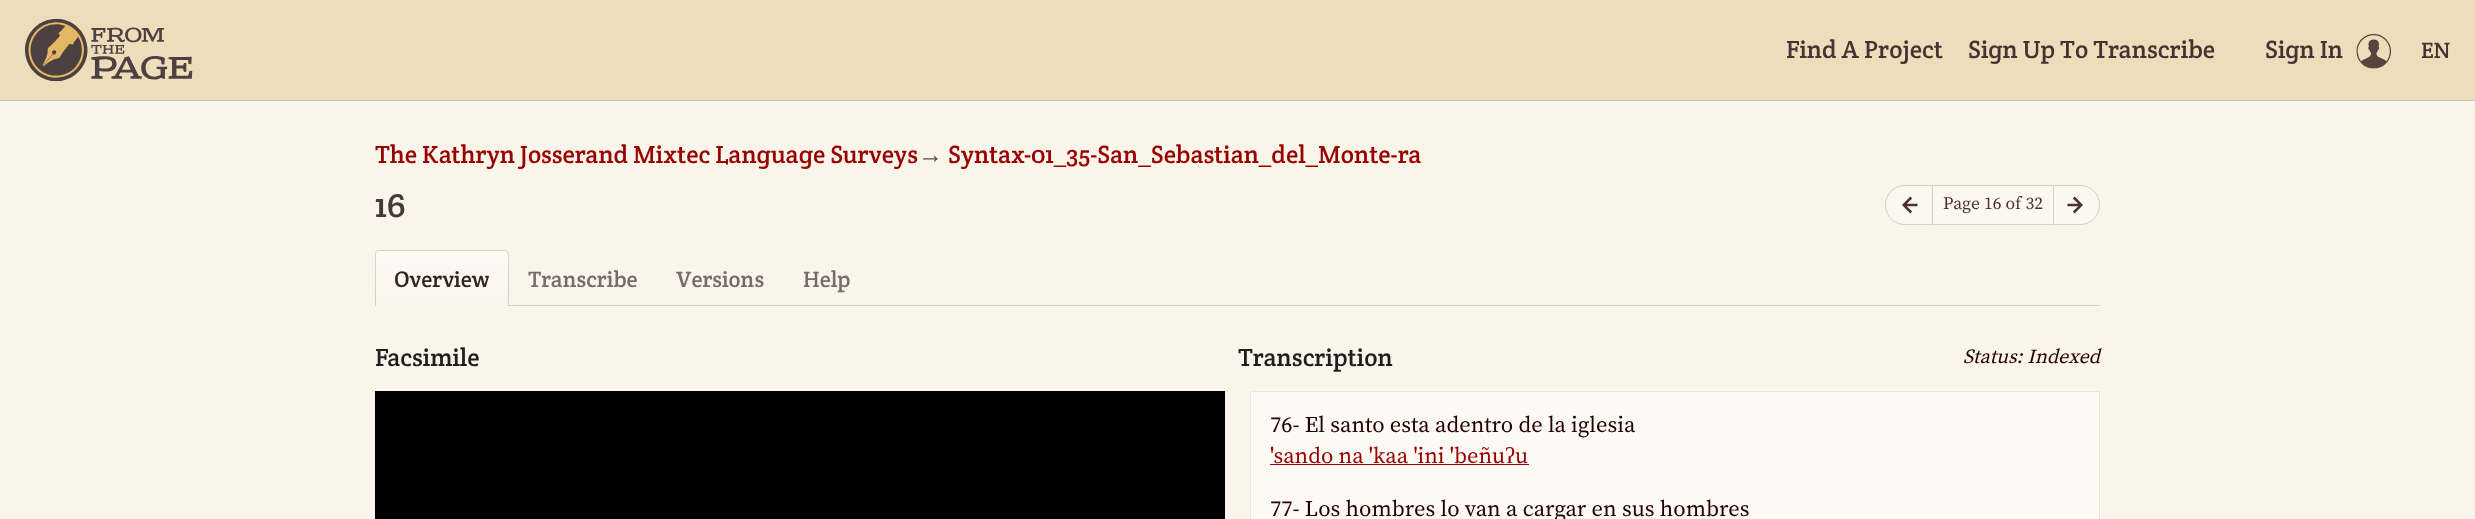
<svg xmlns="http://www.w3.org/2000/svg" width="2475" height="519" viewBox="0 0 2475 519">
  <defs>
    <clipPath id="clip1"><path d="M379 250H505C507 250 509 252 509 254V306H375V254C375 252 377 250 379 250Z"/></clipPath>
    <linearGradient id="g1" gradientUnits="userSpaceOnUse" x1="442" y1="251" x2="442" y2="306"><stop offset="0" stop-color="#fdfaf5"/><stop offset="1" stop-color="#faf5eb"/></linearGradient>
  </defs>
  <rect width="100%" height="100%" fill="#faf5eb"/>
  <path d="M0 100h2475v1H0z" fill="#c8c4bc"/>
  <path d="M0 0h2475v100H0z" fill="#edb"/>
  <image x="25" y="18" width="168" height="64" href="img/1.png"/>
  <image x="2356" y="34" width="35" height="35" href="img/2.png"/>
  <path d="M1905 186H1931V224H1905C1894.5 224 1886 215.5 1886 205C1886 194.5 1894.5 186 1905 186Z" fill="#fbf8f0"/>
  <path d="M1905 185.5H1932.5V224.5H1905C1894 224.5 1885.5 216 1885.5 205C1885.5 194 1894 185.5 1905 185.5Z" fill="none" stroke="#d5d0c8"/>
  <image x="1902" y="196" width="16" height="18" href="img/3.png"/>
  <path d="M1933 186h120v38H1933z" fill="#fbf8f0"/>
  <path d="M1933 185h120v1H1933z" fill="#d5d0c8"/>
  <path d="M1933 224h120v1H1933z" fill="#d5d0c8"/>
  <path d="M2053.5 185.5H2080C2091 185.5 2099.5 194 2099.5 205C2099.5 216 2091 224.5 2080 224.5H2053.5Z" fill="#fbf8f0" stroke="#d5d0c8"/>
  <image x="2067" y="196" width="16" height="18" href="img/4.png"/>
  <path d="M509 305h1591v1H509z" fill="#d5d0c8"/>
  <g clip-path="url(#clip1)">
    <path d="M375 251h134v55H375z" fill="url(#g1)"/>
  </g>
  <path d="M379 250H505C507 250 509 252 509 254V306H375V254C375 252 377 250 379 250ZM379 251H505C506 251 508 252 508 254V306H376V254C376 252 377 251 379 251Z" fill="#00000026" fill-rule="evenodd"/>
  <path d="M375 391h850v128H375z" fill="#000"/>
  <path d="M1250.5 391.5h849v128H1250.5z" fill="#fdfaf5" stroke="#e9e5df"/>
  <path d="M1270 464h259v1H1270z" fill="#900"/>
  <g font-family="Crete Round" font-size="25" fill="#433">
    <text x="1786" y="58">Find A Project</text>
    <text x="1968" y="58">Sign Up To Transcribe</text>
    <text x="2265" y="58">Sign In</text>
  </g>
  <text x="2421" y="58" font-family="Crete Round" font-size="22.5" fill="#433">EN</text>
  <text x="375" y="163" font-family="Crete Round" font-size="25" fill="#900">The Kathryn Josserand Mixtec Language Surveys</text>
  <text x="918" y="163" font-family="Liberation Serif" font-size="25" fill="#634a47">→</text>
  <text x="948" y="163" font-family="Crete Round" font-size="25" fill="#900">Syntax-01_35-San_Sebastian_del_Monte-ra</text>
  <text x="375" y="217" font-family="Crete Round" font-size="35" fill="#453939">16</text>
  <text x="1943" y="209" font-family="Source Serif Pro" font-size="17.5" fill="#4d312f">Page 16 of 32</text>
  <text x="394" y="287" font-family="Crete Round" font-size="22.5" fill="#322">Overview</text>
  <g font-family="Crete Round" font-size="22.5" fill="#796c68">
    <text x="528" y="287">Transcribe</text>
    <text x="676" y="287">Versions</text>
    <text x="803" y="287">Help</text>
  </g>
  <g font-family="Crete Round" font-size="25" fill="#231d1d">
    <text x="375" y="366">Facsimile</text>
    <text x="1238" y="366">Transcription</text>
  </g>
  <text x="1963" y="363" font-family="Source Serif Pro" font-size="20" font-style="italic" fill="#200">Status: Indexed</text>
  <text x="1270" y="432" font-family="Source Serif Pro" font-size="22.5" fill="#200">76- El santo esta adentro de la iglesia</text>
  <text x="1270" y="463" font-family="Source Serif Pro" font-size="22.5" fill="#900">'sando na 'kaa 'ini 'beñu</text>
  <text x="1505" y="463" font-family="Liberation Serif" font-size="22.5" fill="#900">ʔ</text>
  <text x="1515" y="463" font-family="Source Serif Pro" font-size="22.5" fill="#900">u</text>
  <text x="1270" y="516" font-family="Source Serif Pro" font-size="22.5" fill="#200">77- Los hombres lo van a cargar en sus hombres</text>
</svg>
